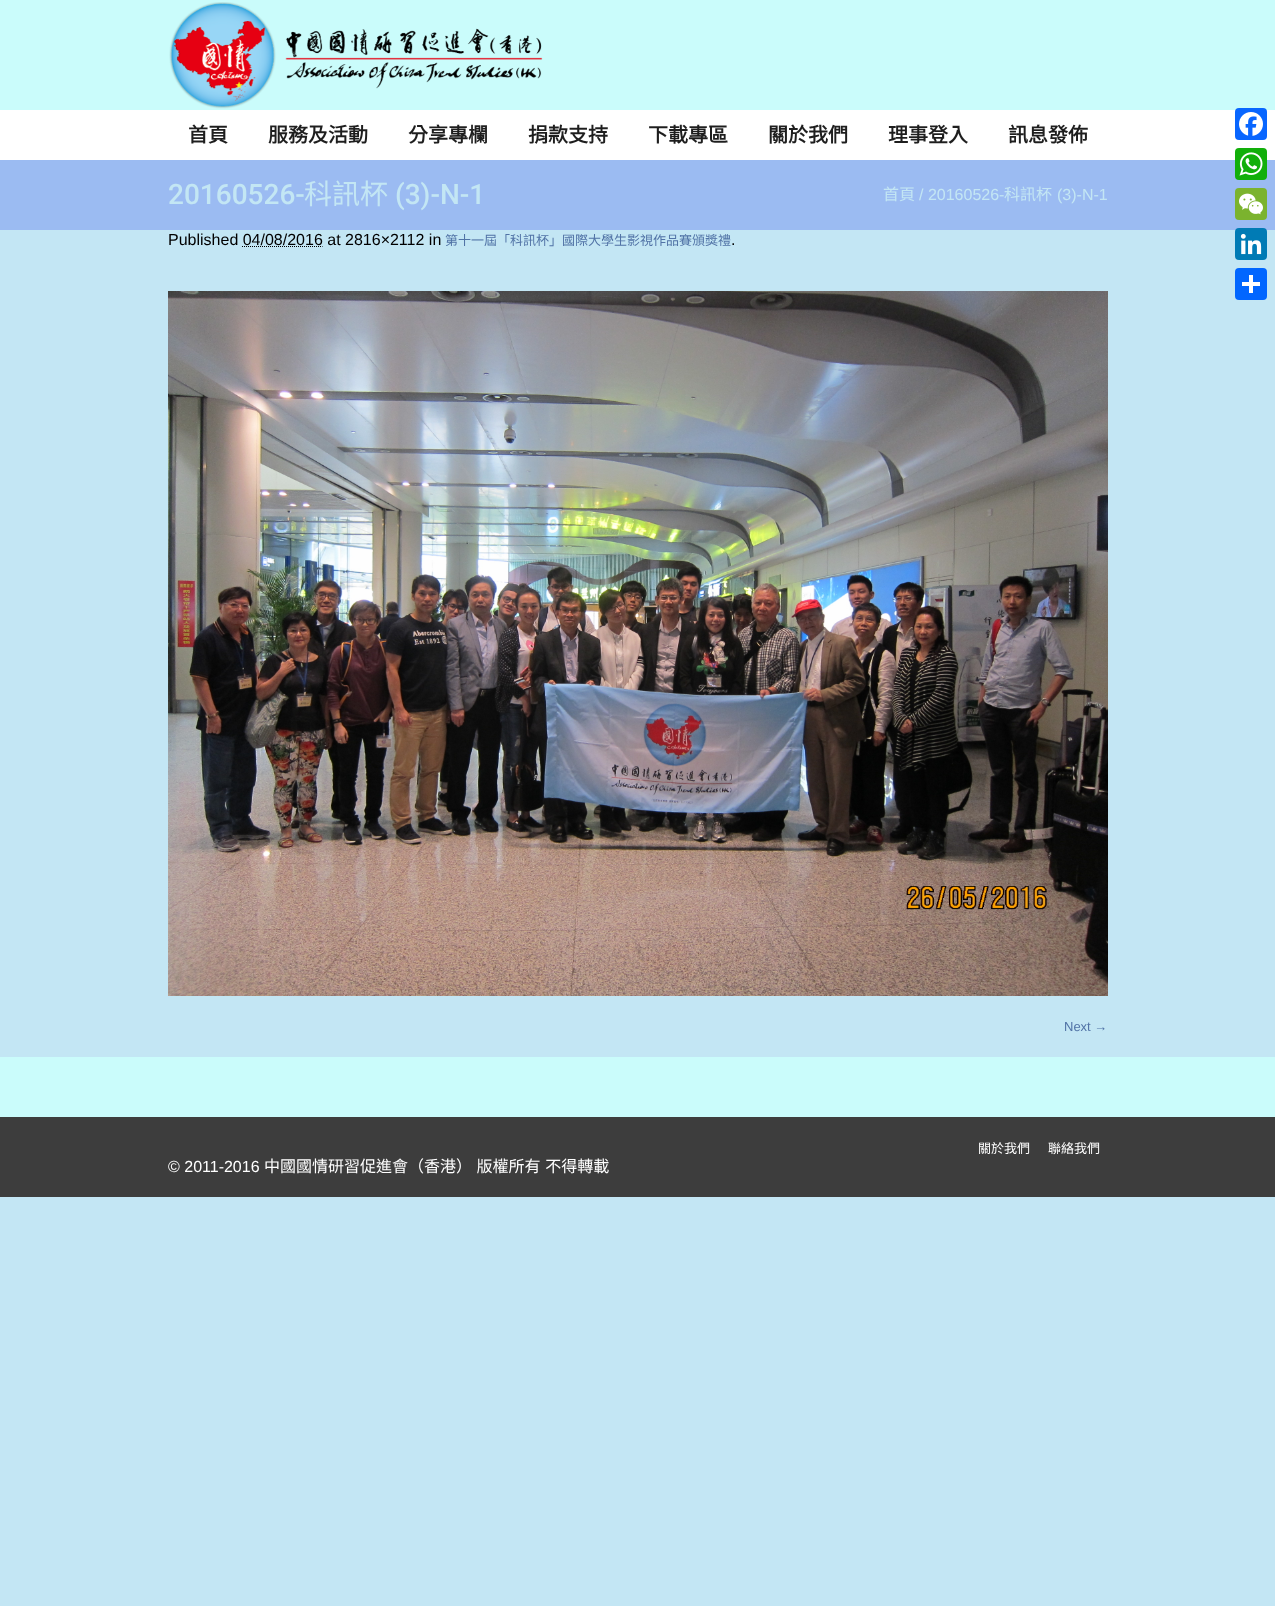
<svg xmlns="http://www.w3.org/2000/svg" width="1275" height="1606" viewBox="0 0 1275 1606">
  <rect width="100%" height="100%" fill="#c3e6f4"/>
  <path d="M0 0h1275v110H0z" fill="#cafcfb"/>
  <image x="169" y="2" width="374" height="107" href="img/1.png"/>
  <path d="M0 110h1275v50H0z" fill="#fff"/>
  <path d="M0 160h1275v70H0z" fill="#9bbbf2"/>
  <path d="M242 246.5H322.5" fill="none" stroke="#000" stroke-dasharray="1 1"/>
  <image x="168" y="291" width="940" height="705" href="img/2.png"/>
  <path d="M0 1057h1275v60H0z" fill="#cafcfb"/>
  <path d="M0 1117h1275v80H0z" fill="#3d3d3d"/>
  <rect x="1235" y="108" width="32" height="32" rx="4" fill="#0866ff"/>
  <image x="1239" y="112" width="24" height="24" href="img/3.png"/>
  <rect x="1235" y="148" width="32" height="32" rx="4" fill="#12af0a"/>
  <image x="1239" y="152" width="24" height="24" href="img/4.png"/>
  <rect x="1235" y="188" width="32" height="32" rx="4" fill="#7bb32e"/>
  <image x="1239" y="193" width="24" height="22" href="img/5.png"/>
  <rect x="1235" y="228" width="32" height="32" rx="4" fill="#007bb5"/>
  <image x="1240" y="233" width="22" height="22" href="img/6.png"/>
  <rect x="1235" y="268" width="32" height="32" rx="4" fill="#0166ff"/>
  <path d="M1249 275h4v18H1249z" fill="#fff"/>
  <path d="M1242 282h18v4H1242z" fill="#fff"/>
  <g font-family="Noto Sans CJK TC" font-size="20" font-weight="bold" fill="#1e1e1e">
    <text x="188" y="142">首頁</text>
    <text x="268" y="142">服務及活動</text>
    <text x="408" y="142">分享專欄</text>
    <text x="528" y="142">捐款支持</text>
    <text x="648" y="142">下載專區</text>
    <text x="768" y="142">關於我們</text>
    <text x="888" y="142">理事登入</text>
    <text x="1008" y="142">訊息發佈</text>
  </g>
  <text x="168" y="204" font-family="Roboto" font-size="28" font-weight="500" fill="#c3e6f4">20160526-</text>
  <text x="304" y="204" font-family="Noto Sans CJK TC" font-size="28" fill="#c3e6f4">科訊杯</text>
  <text x="395" y="204" font-family="Roboto" font-size="28" font-weight="500" fill="#c3e6f4">(3)-N-1</text>
  <text x="883" y="200" font-family="Noto Sans CJK TC" font-size="16" fill="#c3e6f4">首頁</text>
  <text x="919" y="200" font-family="Liberation Sans" font-size="16" fill="#c3e6f4">/ 20160526-</text>
  <text x="1004" y="200" font-family="Noto Sans CJK TC" font-size="16" fill="#c3e6f4">科訊杯</text>
  <text x="1057" y="200" font-family="Liberation Sans" font-size="16" fill="#c3e6f4">(3)-N-1</text>
  <text x="168" y="245" font-family="Liberation Sans" font-size="16" fill="#000">Published 04/08/2016 at 2816×2112 in</text>
  <text x="445" y="245" font-family="Noto Sans CJK TC" font-size="13" fill="#5173a6">第十一屆「科訊杯」國際大學生影視作品賽頒獎禮</text>
  <text x="731" y="245" font-family="Liberation Sans" font-size="16" fill="#000">.</text>
  <text x="1064" y="1031" font-family="Liberation Sans" font-size="13" fill="#5173a6">Next →</text>
  <g font-family="Noto Sans CJK TC" font-size="13" fill="#fff">
    <text x="978" y="1153">關於我們</text>
    <text x="1048" y="1153">聯絡我們</text>
  </g>
  <text x="168" y="1172" font-family="Liberation Sans" font-size="16" fill="#fff">© 2011-2016</text>
  <text x="264" y="1172" word-spacing="1" font-family="Noto Sans CJK TC" font-size="16" fill="#fff">中國國情研習促進會（香港） 版權所有 不得轉載</text>
</svg>
